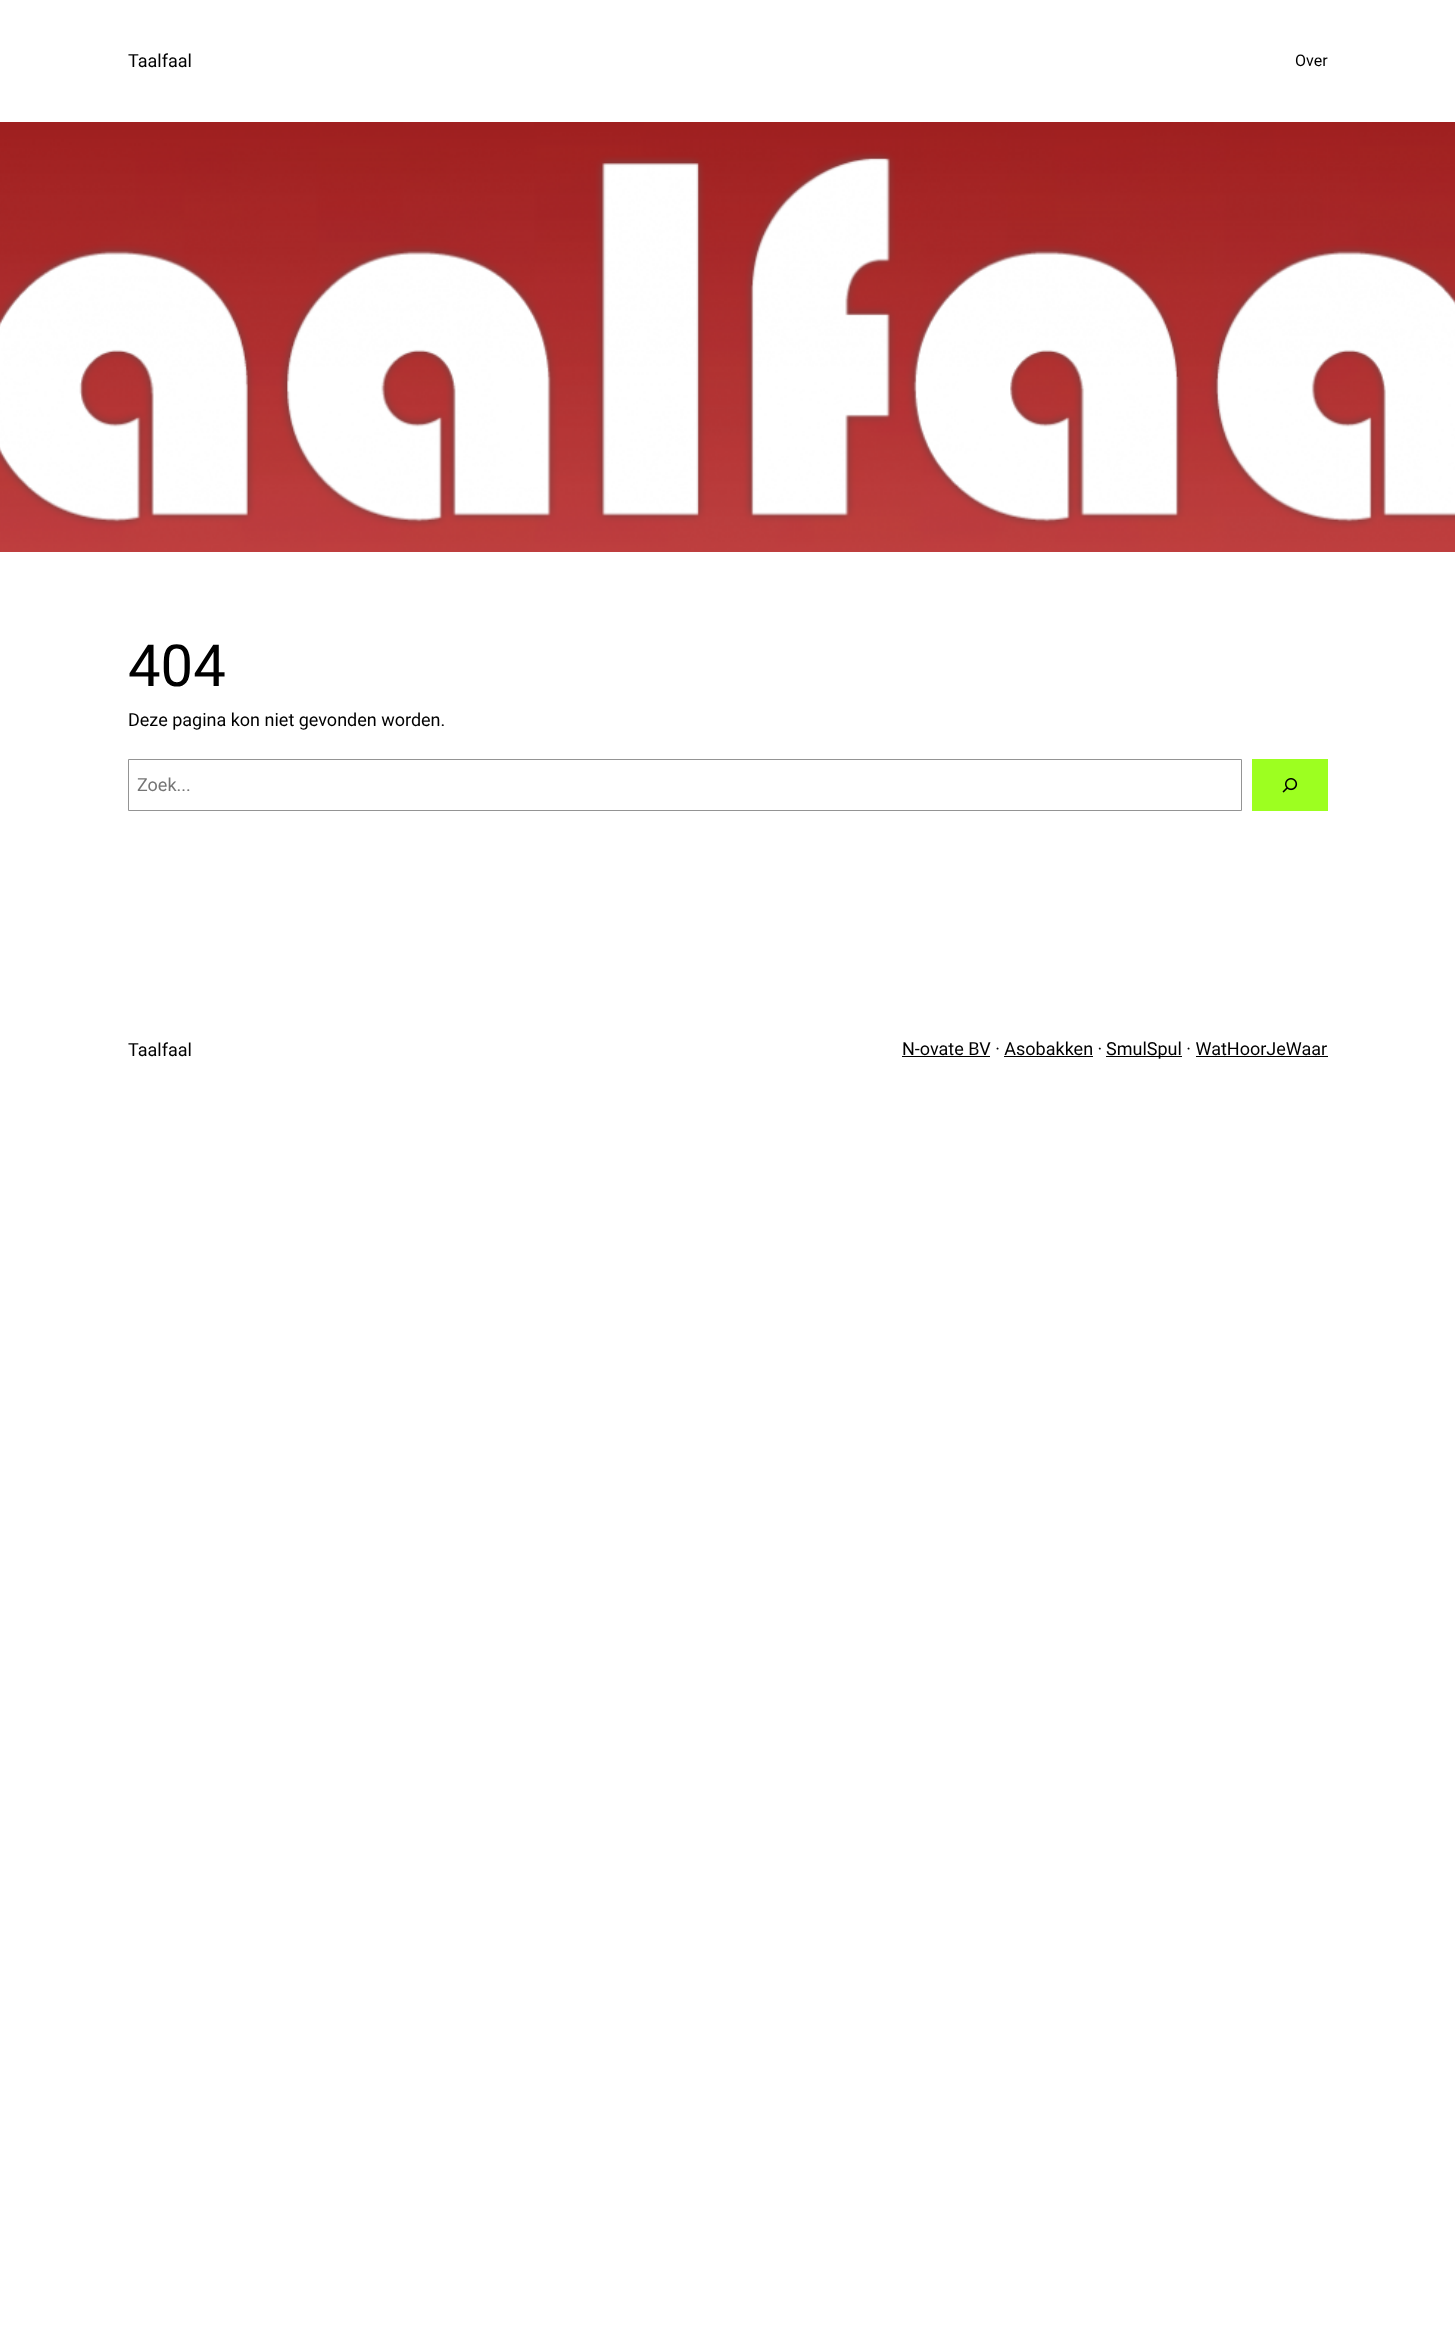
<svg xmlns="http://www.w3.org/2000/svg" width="1455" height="2340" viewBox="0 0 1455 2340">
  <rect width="100%" height="100%" fill="#fff"/>
  <image x="0" y="122" width="1455" height="430" href="img/1.png"/>
  <path d="M128.5 759.5h1113v51H128.5z" fill="none" stroke="#949494"/>
  <path d="M1252 759h76v52H1252z" fill="#9dff20"/>
  <image x="1282" y="778" width="16" height="15" href="img/2.png"/>
  <path d="M902 1056h88v1H902z" fill="#000"/>
  <path d="M1106 1056h76v1H1106z" fill="#000"/>
  <path d="M1004 1056h89v1H1004z" fill="#000"/>
  <path d="M1196 1056h132v1H1196z" fill="#000"/>
  <text x="128" y="67" font-family="Roboto" font-size="18" fill="#000">Taalfaal</text>
  <text x="1295" y="66" font-family="Roboto" font-size="16" fill="#000">Over</text>
  <text x="128" y="686" font-family="Roboto" font-size="58" fill="#000">404</text>
  <text x="128" y="726" font-family="Roboto" font-size="18" fill="#000">Deze pagina kon niet gevonden worden.</text>
  <text x="137" y="791" font-family="Roboto" font-size="18" fill="#757575">Zoek...</text>
  <g font-family="Roboto" font-size="18" fill="#000">
    <text x="128" y="1056">Taalfaal</text>
    <text x="902" y="1055">N-ovate BV · Asobakken ·</text>
    <text x="1106" y="1055">SmulSpul · WatHoorJeWaar</text>
  </g>
</svg>
